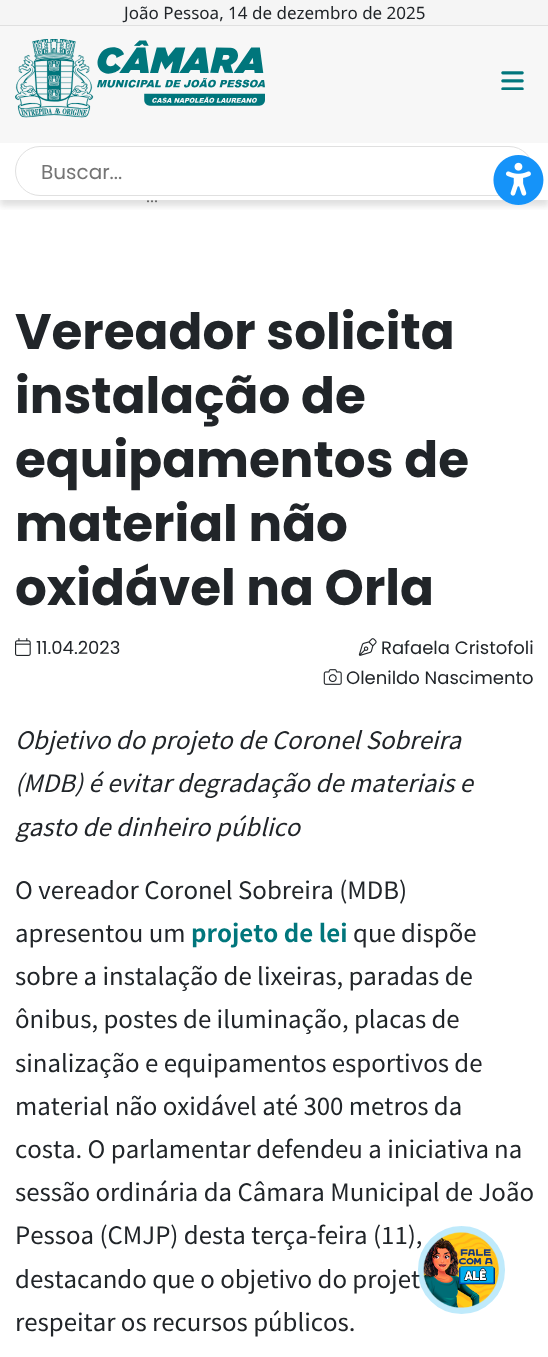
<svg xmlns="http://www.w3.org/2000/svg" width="548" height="1357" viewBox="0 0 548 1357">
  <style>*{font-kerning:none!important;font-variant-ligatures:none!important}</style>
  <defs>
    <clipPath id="clip1"><path d="M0 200h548v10H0z"/></clipPath>
  </defs>
  <rect width="100%" height="100%" fill="#fff"/>
  <path d="M0 0h548v25H0z" fill="#f5f5f5"/>
  <path d="M0 25h548v1H0z" fill="#e0e0e0"/>
  <path d="M0 26h548v117H0z" fill="#f7f7f7"/>
  <image x="15" y="39" width="250" height="79" href="img/1.png"/>
  <image x="501" y="71" width="23" height="19" href="img/2.png"/>
  <g clip-path="url(#clip1)">
    <path d="M0 149h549v57H0z" fill="#63636333" filter="blur(3px)"/>
  </g>
  <rect x="15.5" y="146.5" width="518" height="49" rx="24.5" fill="none" stroke="#e0e0e0"/>
  <circle cx="519" cy="180" r="25" fill="#fff"/>
  <image x="493" y="155" width="51" height="50" href="img/3.png"/>
  <image x="15" y="638" width="16" height="18" href="img/4.png"/>
  <image x="358" y="638" width="19" height="18" href="img/5.png"/>
  <image x="323" y="669" width="19" height="16" href="img/6.png"/>
  <text x="124" y="19" font-family="Noto Sans" font-size="17" fill="#212529">João Pessoa, 14 de dezembro de 2025</text>
  <text x="41" y="179" font-family="Poppins" font-size="20" fill="#757575">Buscar...</text>
  <text x="146" y="202" font-family="Noto Sans" font-size="15" fill="#5a5a5a">...</text>
  <g font-family="Poppins" font-size="50" font-weight="bold" fill="#212529">
    <text x="15" y="349">Vereador solicita</text>
    <text x="15" y="413">instalação de</text>
    <text x="15" y="477">equipamentos de</text>
    <text x="15" y="541">material não</text>
    <text x="15" y="605">oxidável na Orla</text>
  </g>
  <g font-family="Poppins" font-size="18" fill="#212529">
    <text x="36" y="654">11.04.2023</text>
    <text x="381" y="654">Rafaela Cristofoli</text>
    <text x="346" y="684">Olenildo Nascimento</text>
  </g>
  <g font-family="Noto Sans TC" font-size="24" font-weight="100" font-style="italic" fill="#212529">
    <text x="15" y="749">Objetivo do projeto de Coronel Sobreira</text>
    <text x="15" y="792">(MDB) é evitar degradação de materiais e</text>
    <text x="15" y="836">gasto de dinheiro público</text>
  </g>
  <g font-family="Noto Sans TC" font-size="24" font-weight="100" fill="#212529">
    <text x="15" y="899">O vereador Coronel Sobreira (MDB)</text>
    <text x="15" y="942">apresentou um</text>
  </g>
  <text x="191" y="942" font-family="'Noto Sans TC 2'" font-size="24" font-weight="100" fill="#00767c">projeto de lei</text>
  <g font-family="Noto Sans TC" font-size="24" font-weight="100" fill="#212529">
    <text x="353" y="942">que dispõe</text>
    <text x="15" y="985">sobre a instalação de lixeiras, paradas de</text>
    <text x="15" y="1028">ônibus, postes de iluminação, placas de</text>
    <text x="15" y="1072">sinalização e equipamentos esportivos de</text>
    <text x="15" y="1115">material não oxidável até 300 metros da</text>
    <text x="15" y="1158">costa. O parlamentar defendeu a iniciativa</text>
    <text x="494" y="1158">na</text>
    <text x="15" y="1201">sessão ordinária da Câmara Municipal de João</text>
    <text x="15" y="1244">Pessoa (CMJP) desta terça-feira</text>
    <text x="373" y="1244">(11),</text>
    <text x="15" y="1288">destacando que o objetivo do projet</text>
    <text x="15" y="1331">respeitar os recursos públicos.</text>
  </g>
  <rect x="424.5" y="1232.5" width="74" height="75" rx="37" fill="none" stroke="#00acee40" stroke-width="13"/>
  <image x="423" y="1232" width="76" height="76" href="img/7.png"/>
</svg>
